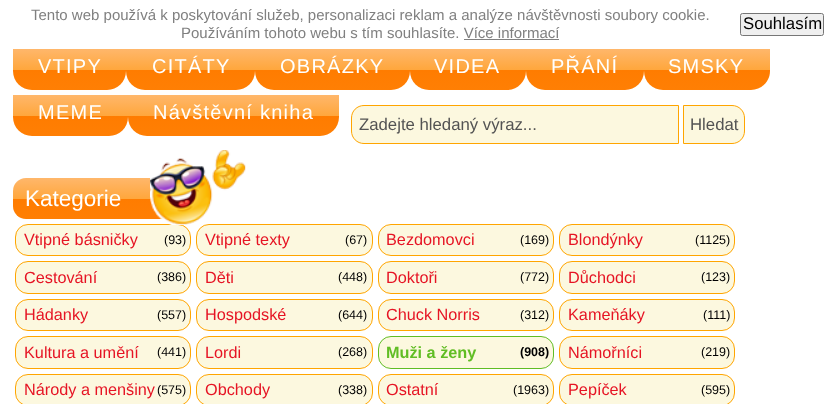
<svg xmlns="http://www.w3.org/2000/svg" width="829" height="404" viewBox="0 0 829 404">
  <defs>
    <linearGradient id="g1" gradientUnits="userSpaceOnUse" x1="69" y1="49" x2="69" y2="90"><stop offset="0" stop-color="#ffb76b"/><stop offset="0.5" stop-color="#ffa73d"/><stop offset="0.51" stop-color="#ff7c00"/><stop offset="1" stop-color="#ff7f04"/></linearGradient>
    <linearGradient id="g2" gradientUnits="userSpaceOnUse" x1="191" y1="49" x2="191" y2="90"><stop offset="0" stop-color="#ffb76b"/><stop offset="0.5" stop-color="#ffa73d"/><stop offset="0.51" stop-color="#ff7c00"/><stop offset="1" stop-color="#ff7f04"/></linearGradient>
    <linearGradient id="g3" gradientUnits="userSpaceOnUse" x1="333" y1="49" x2="333" y2="90"><stop offset="0" stop-color="#ffb76b"/><stop offset="0.5" stop-color="#ffa73d"/><stop offset="0.51" stop-color="#ff7c00"/><stop offset="1" stop-color="#ff7f04"/></linearGradient>
    <linearGradient id="g4" gradientUnits="userSpaceOnUse" x1="468" y1="49" x2="468" y2="90"><stop offset="0" stop-color="#ffb76b"/><stop offset="0.5" stop-color="#ffa73d"/><stop offset="0.51" stop-color="#ff7c00"/><stop offset="1" stop-color="#ff7f04"/></linearGradient>
    <linearGradient id="g5" gradientUnits="userSpaceOnUse" x1="585" y1="49" x2="585" y2="90"><stop offset="0" stop-color="#ffb76b"/><stop offset="0.5" stop-color="#ffa73d"/><stop offset="0.51" stop-color="#ff7c00"/><stop offset="1" stop-color="#ff7f04"/></linearGradient>
    <linearGradient id="g6" gradientUnits="userSpaceOnUse" x1="707" y1="49" x2="707" y2="90"><stop offset="0" stop-color="#ffb76b"/><stop offset="0.5" stop-color="#ffa73d"/><stop offset="0.51" stop-color="#ff7c00"/><stop offset="1" stop-color="#ff7f04"/></linearGradient>
    <linearGradient id="g7" gradientUnits="userSpaceOnUse" x1="70" y1="95" x2="70" y2="136"><stop offset="0" stop-color="#ffb76b"/><stop offset="0.5" stop-color="#ffa73d"/><stop offset="0.51" stop-color="#ff7c00"/><stop offset="1" stop-color="#ff7f04"/></linearGradient>
    <linearGradient id="g8" gradientUnits="userSpaceOnUse" x1="233" y1="95" x2="233" y2="136"><stop offset="0" stop-color="#ffb76b"/><stop offset="0.5" stop-color="#ffa73d"/><stop offset="0.51" stop-color="#ff7c00"/><stop offset="1" stop-color="#ff7f04"/></linearGradient>
    <linearGradient id="g9" gradientUnits="userSpaceOnUse" x1="108" y1="178" x2="108" y2="219"><stop offset="0" stop-color="#ffb76b"/><stop offset="0.5" stop-color="#ffa73d"/><stop offset="0.51" stop-color="#ff7c00"/><stop offset="1" stop-color="#ff7f04"/></linearGradient>
  </defs>
  <rect width="100%" height="100%" fill="#fff"/>
  <image x="0" y="0" width="829" height="46" href="img/1.png"/>
  <path d="M464 39h95v1H464z" fill="#808080"/>
  <rect x="740.5" y="13.5" width="83" height="22" rx="2" fill="#efefef" stroke="#767676"/>
  <path d="M13 49H126V71C126 81.5 117.5 90 107 90H32C21.5 90 13 81.5 13 71Z" fill="url(#g1)"/>
  <path d="M126 49H255V71C255 81.5 246.5 90 236 90H145C134.5 90 126 81.5 126 71Z" fill="url(#g2)"/>
  <path d="M255 49H410V71C410 81.5 401.5 90 391 90H274C263.5 90 255 81.5 255 71Z" fill="url(#g3)"/>
  <path d="M410 49H526V71C526 81.5 517.5 90 507 90H429C418.5 90 410 81.5 410 71Z" fill="url(#g4)"/>
  <path d="M526 49H644V71C644 81.5 635.5 90 625 90H545C534.5 90 526 81.5 526 71Z" fill="url(#g5)"/>
  <path d="M644 49H770V71C770 81.5 761.5 90 751 90H663C652.5 90 644 81.5 644 71Z" fill="url(#g6)"/>
  <path d="M13 95H128V117C128 127.5 119.5 136 109 136H32C21.5 136 13 127.5 13 117Z" fill="url(#g7)"/>
  <path d="M128 95H339V117C339 127.5 330.5 136 320 136H147C136.5 136 128 127.5 128 117Z" fill="url(#g8)"/>
  <path d="M364 105.5H678.5V143.5H364C357 143.5 351.5 138 351.5 131V118C351.5 111 357 105.5 364 105.5Z" fill="#fcf8df" stroke="#ffa500"/>
  <path d="M683.5 105.5H732C739 105.5 744.5 111 744.5 118V131C744.5 138 739 143.5 732 143.5H683.5Z" fill="#fcf8df" stroke="#ffa500"/>
  <rect x="13" y="178" width="190" height="41" rx="13" fill="url(#g9)"/>
  <rect x="15.5" y="224.5" width="175" height="31" rx="12.5" fill="#fcf8df" stroke="#ffa500"/>
  <rect x="196.5" y="224.5" width="176" height="31" rx="12.5" fill="#fcf8df" stroke="#ffa500"/>
  <image x="150" y="150" width="96" height="75" href="img/2.png"/>
  <rect x="378.5" y="224.5" width="175" height="31" rx="12.5" fill="#fcf8df" stroke="#ffa500"/>
  <rect x="559.5" y="224.5" width="175" height="31" rx="12.5" fill="#fcf8df" stroke="#ffa500"/>
  <rect x="15.5" y="261.5" width="175" height="32" rx="12.5" fill="#fcf8df" stroke="#ffa500"/>
  <rect x="196.5" y="261.5" width="176" height="32" rx="12.5" fill="#fcf8df" stroke="#ffa500"/>
  <rect x="378.5" y="261.5" width="175" height="32" rx="12.5" fill="#fcf8df" stroke="#ffa500"/>
  <rect x="559.5" y="261.5" width="175" height="32" rx="12.5" fill="#fcf8df" stroke="#ffa500"/>
  <rect x="15.5" y="299.5" width="175" height="31" rx="12.5" fill="#fcf8df" stroke="#ffa500"/>
  <rect x="196.5" y="299.5" width="176" height="31" rx="12.5" fill="#fcf8df" stroke="#ffa500"/>
  <rect x="378.5" y="299.5" width="175" height="31" rx="12.5" fill="#fcf8df" stroke="#ffa500"/>
  <rect x="559.5" y="299.5" width="175" height="31" rx="12.5" fill="#fcf8df" stroke="#ffa500"/>
  <rect x="15.5" y="336.5" width="175" height="32" rx="12.5" fill="#fcf8df" stroke="#ffa500"/>
  <rect x="196.5" y="336.5" width="176" height="32" rx="12.5" fill="#fcf8df" stroke="#ffa500"/>
  <rect x="378.5" y="336.5" width="175" height="32" rx="12.5" fill="#fcf8df" stroke="#61bd24"/>
  <rect x="559.5" y="336.5" width="175" height="32" rx="12.5" fill="#fcf8df" stroke="#ffa500"/>
  <rect x="15.5" y="374.5" width="175" height="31" rx="12.5" fill="#fcf8df" stroke="#ffa500"/>
  <rect x="196.5" y="374.5" width="176" height="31" rx="12.5" fill="#fcf8df" stroke="#ffa500"/>
  <rect x="378.5" y="374.5" width="175" height="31" rx="12.5" fill="#fcf8df" stroke="#ffa500"/>
  <rect x="559.5" y="374.5" width="175" height="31" rx="12.5" fill="#fcf8df" stroke="#ffa500"/>
  <g font-family="Liberation Sans" font-size="15" fill="#808080">
    <text x="31" y="20">Tento web používá k poskytování služeb, personalizaci reklam a analýze návštěvnosti soubory cookie.</text>
    <text x="181" y="38">Používáním tohoto webu s tím souhlasíte. Více informací</text>
  </g>
  <text x="743" y="29" font-family="Liberation Sans" font-size="16.75" fill="#000">Souhlasím</text>
  <g font-family="Liberation Sans" font-size="20" letter-spacing="1.25" fill="#fff">
    <text x="38" y="73">VTIPY</text>
    <text x="152" y="73">CITÁTY</text>
    <text x="280" y="73">OBRÁZKY</text>
    <text x="434" y="73">VIDEA</text>
    <text x="551" y="73">PŘÁNÍ</text>
    <text x="668" y="73">SMSKY</text>
    <text x="38" y="119">MEME</text>
    <text x="153" y="119">Návštěvní kniha</text>
  </g>
  <g font-family="Liberation Sans" font-size="16.75" fill="#535353">
    <text x="359" y="130">Zadejte hledaný výraz...</text>
    <text x="690" y="130">Hledat</text>
  </g>
  <text x="25" y="206" font-family="Liberation Sans" font-size="22.5" fill="#fff">Kategorie</text>
  <text x="24" y="245" font-family="Liberation Sans" font-size="16.25" fill="#e61424">Vtipné básničky</text>
  <text x="164" y="244" font-family="Liberation Sans" font-size="12.5" fill="#000">(93)</text>
  <text x="205" y="245" font-family="Liberation Sans" font-size="16.25" fill="#e61424">Vtipné texty</text>
  <text x="345" y="244" font-family="Liberation Sans" font-size="12.5" fill="#000">(67)</text>
  <text x="386" y="245" font-family="Liberation Sans" font-size="16.25" fill="#e61424">Bezdomovci</text>
  <text x="520" y="244" font-family="Liberation Sans" font-size="12.5" fill="#000">(169)</text>
  <text x="568" y="245" font-family="Liberation Sans" font-size="16.25" fill="#e61424">Blondýnky</text>
  <text x="695" y="244" font-family="Liberation Sans" font-size="12.5" fill="#000">(1125)</text>
  <text x="24" y="283" font-family="Liberation Sans" font-size="16.25" fill="#e61424">Cestování</text>
  <text x="157" y="281" font-family="Liberation Sans" font-size="12.5" fill="#000">(386)</text>
  <text x="205" y="283" font-family="Liberation Sans" font-size="16.25" fill="#e61424">Děti</text>
  <text x="338" y="281" font-family="Liberation Sans" font-size="12.5" fill="#000">(448)</text>
  <text x="386" y="283" font-family="Liberation Sans" font-size="16.25" fill="#e61424">Doktoři</text>
  <text x="520" y="281" font-family="Liberation Sans" font-size="12.5" fill="#000">(772)</text>
  <text x="568" y="283" font-family="Liberation Sans" font-size="16.25" fill="#e61424">Důchodci</text>
  <text x="701" y="281" font-family="Liberation Sans" font-size="12.5" fill="#000">(123)</text>
  <text x="24" y="320" font-family="Liberation Sans" font-size="16.25" fill="#e61424">Hádanky</text>
  <text x="157" y="319" font-family="Liberation Sans" font-size="12.5" fill="#000">(557)</text>
  <text x="205" y="320" font-family="Liberation Sans" font-size="16.25" fill="#e61424">Hospodské</text>
  <text x="338" y="319" font-family="Liberation Sans" font-size="12.5" fill="#000">(644)</text>
  <text x="386" y="320" font-family="Liberation Sans" font-size="16.25" fill="#e61424">Chuck Norris</text>
  <text x="520" y="319" font-family="Liberation Sans" font-size="12.5" fill="#000">(312)</text>
  <text x="568" y="320" font-family="Liberation Sans" font-size="16.25" fill="#e61424">Kameňáky</text>
  <text x="703" y="319" font-family="Liberation Sans" font-size="12.5" fill="#000">(111)</text>
  <text x="24" y="358" font-family="Liberation Sans" font-size="16.25" fill="#e61424">Kultura a umění</text>
  <text x="157" y="356" font-family="Liberation Sans" font-size="12.5" fill="#000">(441)</text>
  <text x="205" y="358" font-family="Liberation Sans" font-size="16.25" fill="#e61424">Lordi</text>
  <text x="338" y="356" font-family="Liberation Sans" font-size="12.5" fill="#000">(268)</text>
  <text x="386" y="358" font-family="Liberation Sans" font-size="16.25" font-weight="bold" fill="#61bd24">Muži a ženy</text>
  <text x="520" y="356" font-family="Liberation Sans" font-size="12.5" font-weight="bold" fill="#000">(908)</text>
  <text x="568" y="358" font-family="Liberation Sans" font-size="16.25" fill="#e61424">Námořníci</text>
  <text x="701" y="356" font-family="Liberation Sans" font-size="12.5" fill="#000">(219)</text>
  <text x="24" y="395" font-family="Liberation Sans" font-size="16.25" fill="#e61424">Národy a menšiny</text>
  <text x="157" y="394" font-family="Liberation Sans" font-size="12.5" fill="#000">(575)</text>
  <text x="205" y="395" font-family="Liberation Sans" font-size="16.25" fill="#e61424">Obchody</text>
  <text x="338" y="394" font-family="Liberation Sans" font-size="12.5" fill="#000">(338)</text>
  <text x="386" y="395" font-family="Liberation Sans" font-size="16.25" fill="#e61424">Ostatní</text>
  <text x="513" y="394" font-family="Liberation Sans" font-size="12.5" fill="#000">(1963)</text>
  <text x="568" y="395" font-family="Liberation Sans" font-size="16.25" fill="#e61424">Pepíček</text>
  <text x="701" y="394" font-family="Liberation Sans" font-size="12.5" fill="#000">(595)</text>
</svg>
